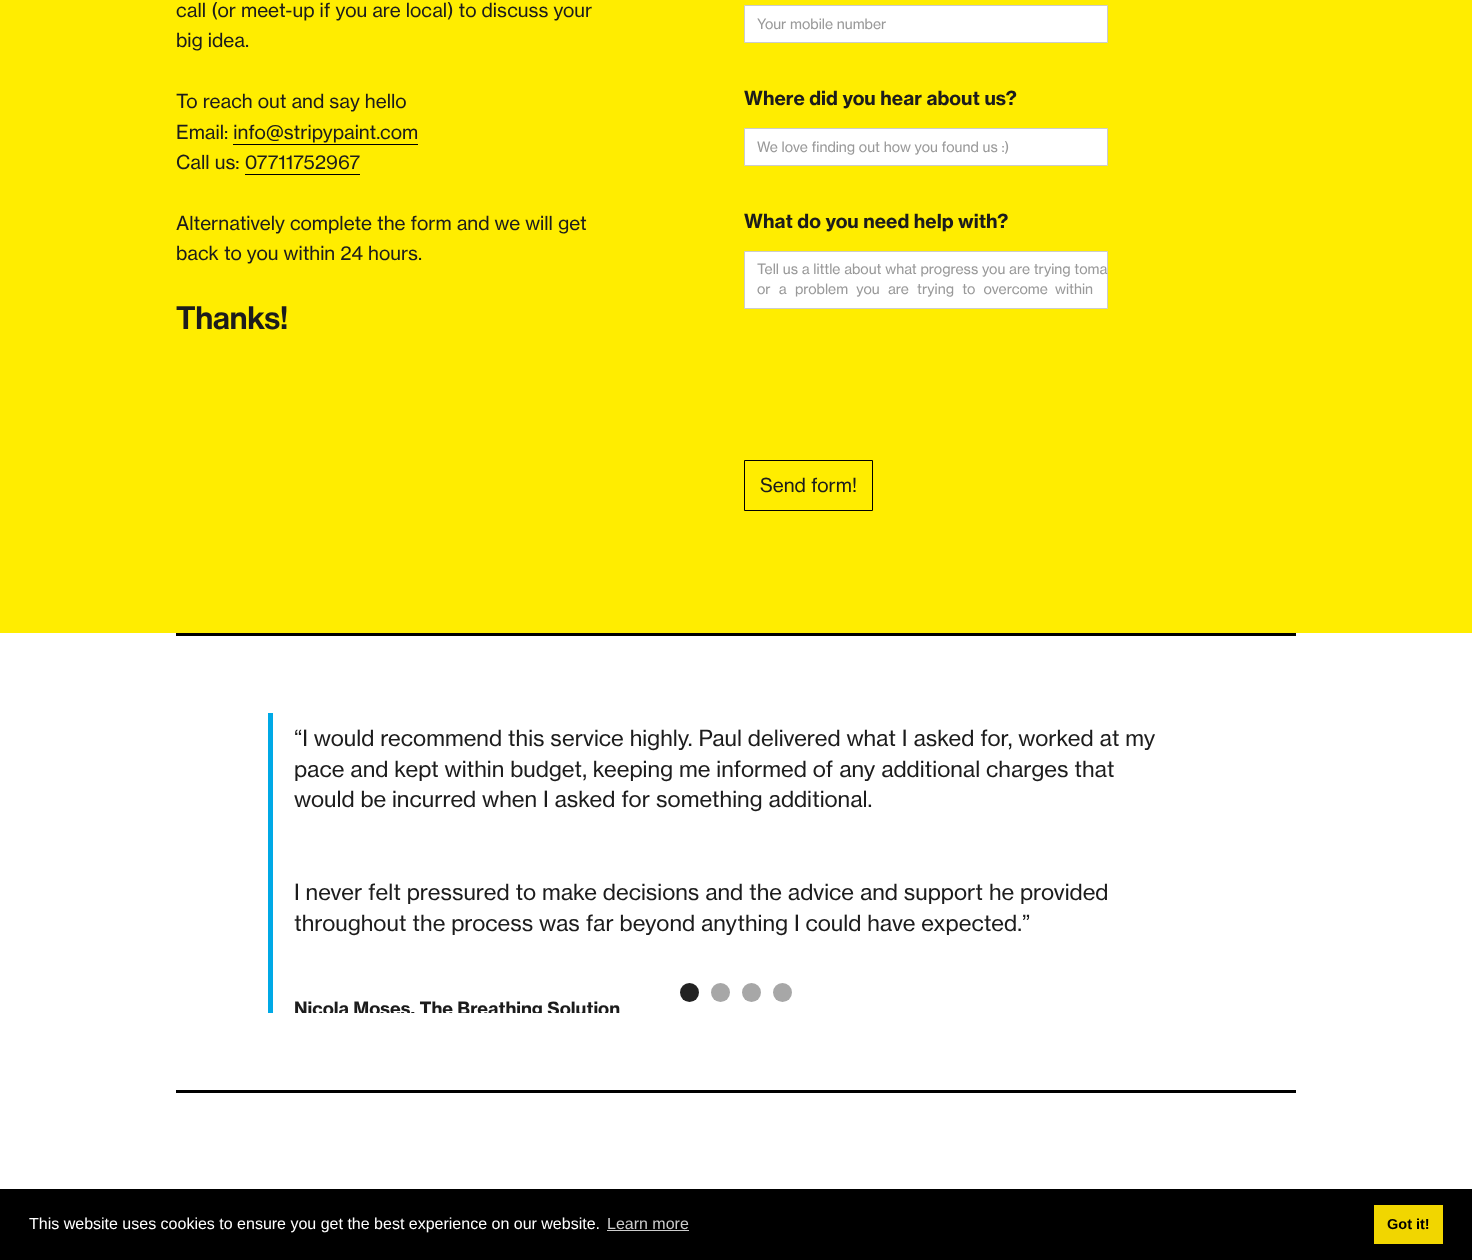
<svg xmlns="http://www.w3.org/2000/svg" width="1472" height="1260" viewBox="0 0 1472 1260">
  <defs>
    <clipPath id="clip1"><path d="M176 713h1120v300H176z"/></clipPath>
  </defs>
  <rect width="100%" height="100%" fill="#fff"/>
  <path d="M0 0h1472v633H0z" fill="#ffed00"/>
  <path d="M233 144h185v1H233z" fill="#000"/>
  <path d="M245 174h115v1H245z" fill="#000"/>
  <path d="M744.5 5.5h363v37H744.5z" fill="#fff" stroke="#ccc"/>
  <path d="M744.5 128.5h363v37H744.5z" fill="#fff" stroke="#ccc"/>
  <path d="M744.5 251.5h363v57H744.5z" fill="#fff" stroke="#ccc"/>
  <path d="M744.5 460.5h128v50H744.5z" fill="none" stroke="#000"/>
  <path d="M176 633h1120v3H176z" fill="#000"/>
  <path d="M268 713h5v300H268z" fill="#00a9e6"/>
  <circle cx="689.5" cy="992.5" r="9.5" fill="#222"/>
  <circle cx="720.5" cy="992.5" r="9.5" fill="#a7a7a7"/>
  <circle cx="751.5" cy="992.5" r="9.5" fill="#a7a7a7"/>
  <circle cx="782.5" cy="992.5" r="9.5" fill="#a7a7a7"/>
  <path d="M176 1090h1120v3H176z" fill="#000"/>
  <path d="M0 1189h1472v71H0z" fill="#000"/>
  <path d="M607 1230h82v1H607z" fill="#ccc"/>
  <path d="M1374 1205h69v39H1374z" fill="#f1d600"/>
  <g font-family="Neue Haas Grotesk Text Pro" font-size="19" fill="#1c1c1c">
    <text x="176" y="17">call (or meet-up if you are local) to discuss your</text>
    <text x="176" y="47">big idea.</text>
    <text x="176" y="108">To reach out and say hello</text>
    <text x="176" y="139">Email: info@stripypaint.com</text>
    <text x="176" y="169">Call us: 07711752967</text>
    <text x="176" y="230">Alternatively complete the form and we will get</text>
    <text x="176" y="260">back to you within 24 hours.</text>
  </g>
  <text x="176" y="329" font-family="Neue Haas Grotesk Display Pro" font-size="32" font-weight="500" fill="#1c1c1c">Thanks!</text>
  <text x="757" y="29" font-family="Neue Haas Grotesk Text Pro" font-size="14" fill="#999">Your mobile number</text>
  <text x="744" y="105" font-family="Neue Haas Grotesk Text Pro" font-size="19" font-weight="bold" fill="#1c1c1c">Where did you hear about us?</text>
  <text x="757" y="152" font-family="Neue Haas Grotesk Text Pro" font-size="14" fill="#999">We love finding out how you found us :)</text>
  <text x="744" y="228" font-family="Neue Haas Grotesk Text Pro" font-size="19" font-weight="bold" fill="#1c1c1c">What do you need help with?</text>
  <g font-family="Neue Haas Grotesk Text Pro" font-size="14" fill="#999">
    <text x="757" y="274">Tell us a little about what progress you are trying toma</text>
    <text x="757" y="294" word-spacing="4.5">or a problem you are trying to overcome</text>
    <text x="1055" y="294">within</text>
  </g>
  <text x="760" y="492" font-family="Neue Haas Grotesk Text Pro" font-size="19" fill="#1c1c1c">Send form!</text>
  <g font-family="Neue Haas Grotesk Text Pro" font-size="22" fill="#1c1c1c">
    <text x="294" y="746">“I would recommend this service highly. Paul delivered what I asked for, worked at my</text>
    <text x="294" y="777">pace and kept within budget, keeping me informed of any additional charges that</text>
    <text x="294" y="807">would be incurred when I asked for something additional.</text>
    <text x="294" y="900">I never felt pressured to make decisions and the advice and support he provided</text>
    <text x="294" y="931">throughout the process was far beyond anything I could have expected.”</text>
  </g>
  <g clip-path="url(#clip1)">
    <text x="294" y="1015" font-family="Neue Haas Grotesk Text Pro" font-size="18" font-weight="bold" fill="#1c1c1c">Nicola Moses, The Breathing Solution</text>
  </g>
  <text x="29" y="1229" font-family="Liberation Sans" font-size="16" fill="#fff">This website uses cookies to ensure you get the best experience on our website.</text>
  <text x="607" y="1229" font-family="Liberation Sans" font-size="16" fill="#ccc">Learn more</text>
  <text x="1387" y="1229" font-family="Liberation Sans" font-size="14.5" font-weight="bold" fill="#000">Got it!</text>
</svg>
